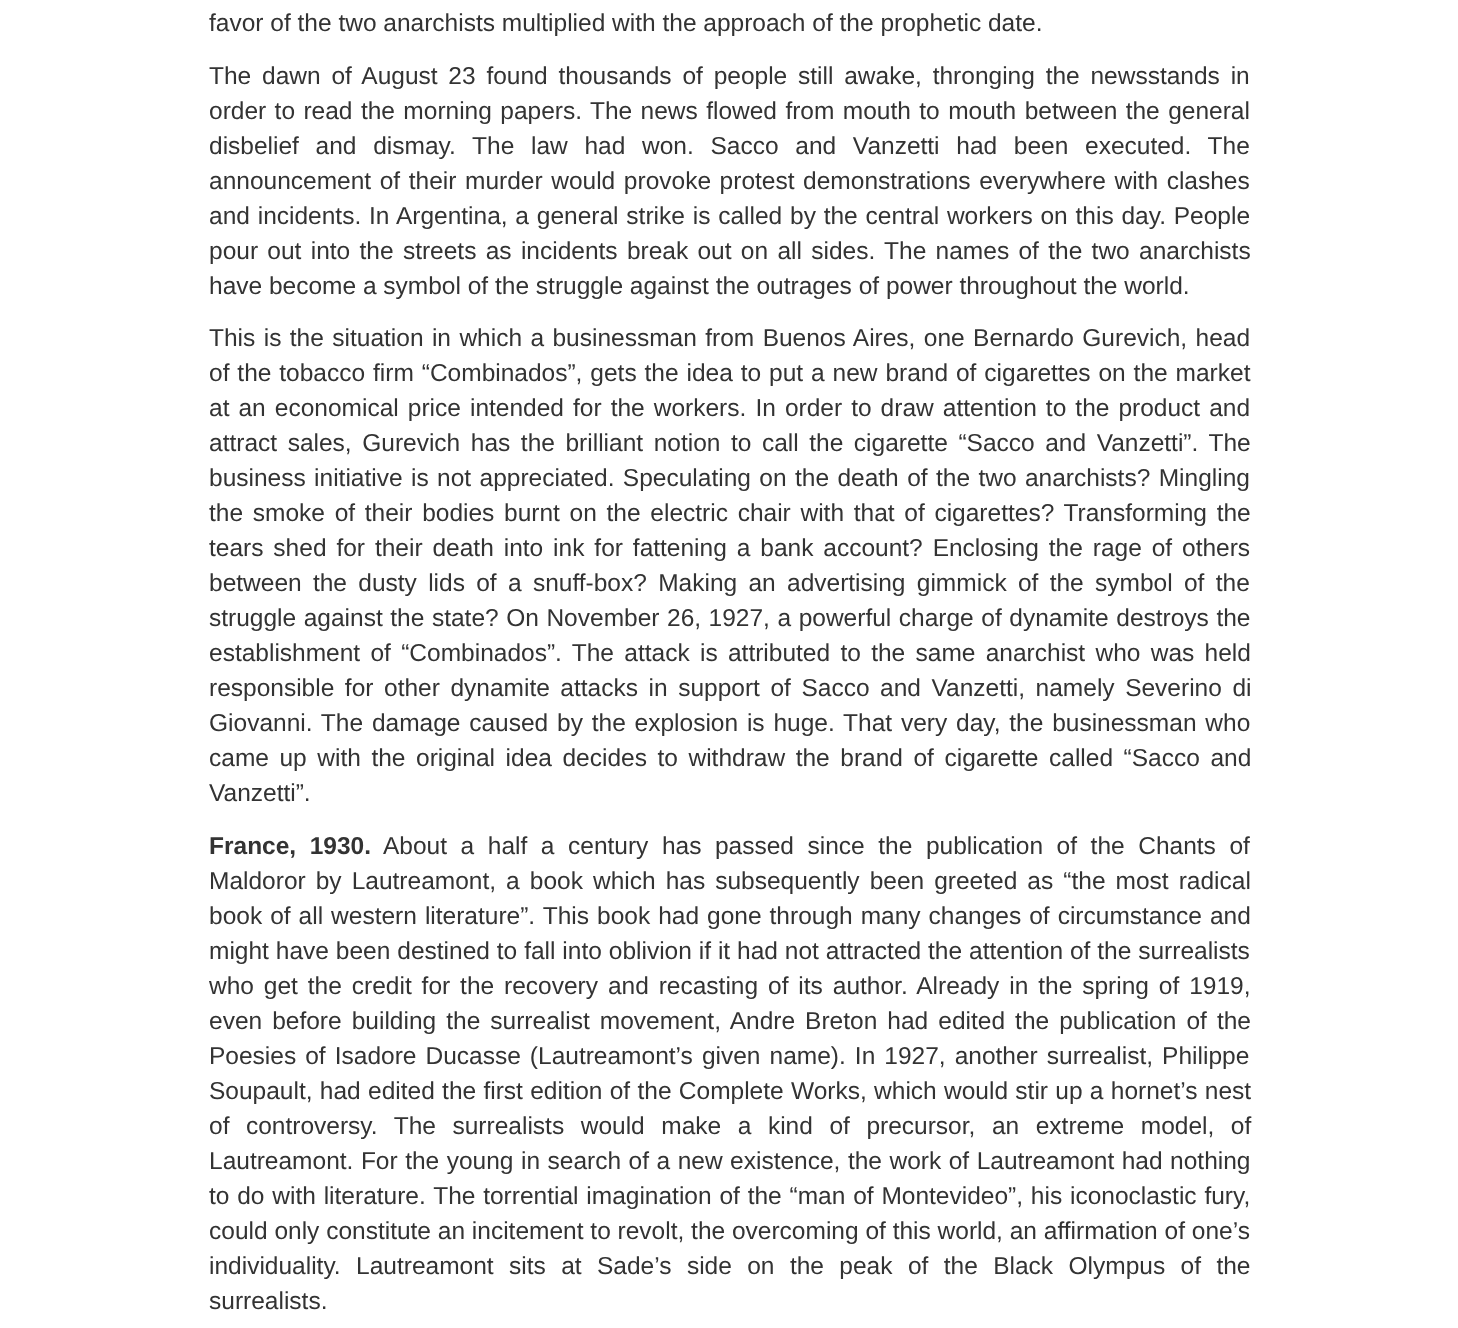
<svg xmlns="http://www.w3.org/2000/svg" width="1458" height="1328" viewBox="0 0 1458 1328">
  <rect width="100%" height="100%" fill="#fff"/>
  <g font-family="Liberation Sans" font-size="24.5" fill="#333">
    <text x="209" y="31">favor of the two anarchists multiplied with the approach of the prophetic date.</text>
    <text x="209" y="84" word-spacing="4">The dawn of August 23 found thousands of people still awake, thronging the newsstands in</text>
    <text x="209" y="119" word-spacing="1.6">order to read the morning papers. The news flowed from mouth to mouth between the general</text>
    <text x="209" y="154" word-spacing="9.9">disbelief and dismay. The law had won. Sacco and Vanzetti had been executed. The</text>
    <text x="209" y="189" word-spacing="1.8">announcement of their murder would provoke protest demonstrations everywhere with clashes</text>
    <text x="209" y="224" word-spacing="1">and incidents. In Argentina, a general strike is called by the central workers on this day. People</text>
    <text x="209" y="259" word-spacing="2.5">pour out into the streets as incidents break out on all sides. The names of the two anarchists</text>
    <text x="209" y="294">have become a symbol of the struggle against the outrages of power throughout the world.</text>
    <text x="209" y="346" word-spacing="1.6">This is the situation in which a businessman from Buenos Aires, one Bernardo Gurevich, head</text>
    <text x="209" y="381" word-spacing="1.1">of the tobacco firm “Combinados”, gets the idea to put a new brand of cigarettes on the market</text>
    <text x="209" y="416" word-spacing="2.25">at an economical price intended for the workers. In order to draw attention to the product and</text>
    <text x="209" y="451" word-spacing="3.75">attract sales, Gurevich has the brilliant notion to call the cigarette “Sacco and Vanzetti”. The</text>
    <text x="209" y="486" word-spacing="1.6">business initiative is not appreciated. Speculating on the death of the two anarchists? Mingling</text>
    <text x="209" y="521" word-spacing="2.9">the smoke of their bodies burnt on the electric chair with that of cigarettes? Transforming the</text>
    <text x="209" y="556" word-spacing="3.1">tears shed for their death into ink for fattening a bank account? Enclosing the rage of others</text>
    <text x="209" y="591" word-spacing="4.5">between the dusty lids of a snuff-box? Making an advertising gimmick of the symbol of the</text>
    <text x="209" y="626" word-spacing="0.75">struggle against the state? On November 26, 1927, a powerful charge of dynamite destroys the</text>
    <text x="209" y="661" word-spacing="3.5">establishment of “Combinados”. The attack is attributed to the same anarchist who was held</text>
    <text x="209" y="696" word-spacing="3.75">responsible for other dynamite attacks in support of Sacco and Vanzetti, namely Severino di</text>
    <text x="209" y="731" word-spacing="2">Giovanni. The damage caused by the explosion is huge. That very day, the businessman who</text>
    <text x="209" y="766" word-spacing="3.75">came up with the original idea decides to withdraw the brand of cigarette called “Sacco and</text>
    <text x="209" y="801">Vanzetti”.</text>
  </g>
  <text x="209" y="854" word-spacing="6.75" font-family="Liberation Sans" font-size="24.5" font-weight="bold" fill="#333">France, 1930.</text>
  <g font-family="Liberation Sans" font-size="24.5" fill="#333">
    <text x="383" y="854" word-spacing="6.75">About a half a century has passed since the publication of the Chants of</text>
    <text x="209" y="889" word-spacing="3.25">Maldoror by Lautreamont, a book which has subsequently been greeted as “the most radical</text>
    <text x="209" y="924" word-spacing="1.2">book of all western literature”. This book had gone through many changes of circumstance and</text>
    <text x="209" y="959" word-spacing="0.1">might have been destined to fall into oblivion if it had not attracted the attention of the surrealists</text>
    <text x="209" y="994" word-spacing="3.1">who get the credit for the recovery and recasting of its author. Already in the spring of 1919,</text>
    <text x="209" y="1029" word-spacing="3.25">even before building the surrealist movement, Andre Breton had edited the publication of the</text>
    <text x="209" y="1064" word-spacing="2.25">Poesies of Isadore Ducasse (Lautreamont’s given name). In 1927, another surrealist, Philippe</text>
    <text x="209" y="1099" word-spacing="0.5">Soupault, had edited the first edition of the Complete Works, which would stir up a hornet’s nest</text>
    <text x="209" y="1134" word-spacing="9.75">of controversy. The surrealists would make a kind of precursor, an extreme model, of</text>
    <text x="209" y="1169" word-spacing="0.7">Lautreamont. For the young in search of a new existence, the work of Lautreamont had nothing</text>
    <text x="209" y="1204" word-spacing="1">to do with literature. The torrential imagination of the “man of Montevideo”, his iconoclastic fury,</text>
    <text x="209" y="1239">could only constitute an incitement to revolt, the overcoming of this world, an affirmation of one’s</text>
    <text x="209" y="1274" word-spacing="8.6">individuality. Lautreamont sits at Sade’s side on the peak of the Black Olympus of the</text>
    <text x="209" y="1309">surrealists.</text>
  </g>
</svg>
